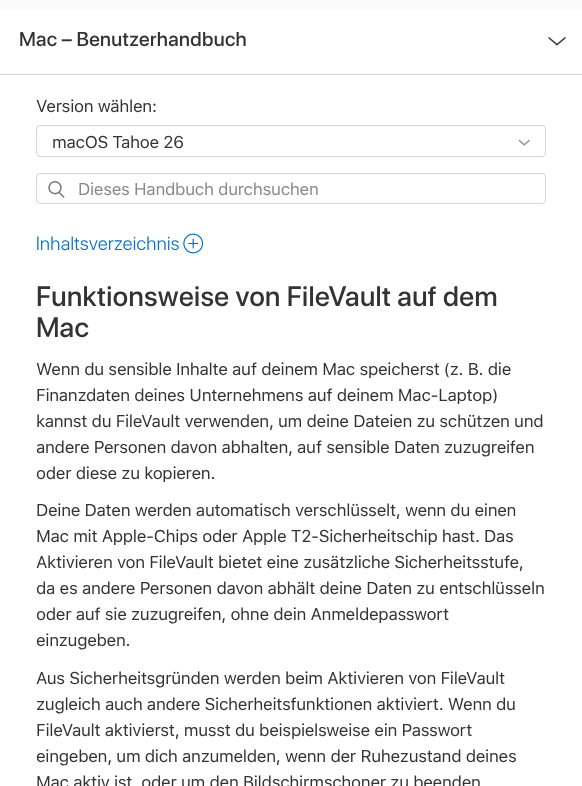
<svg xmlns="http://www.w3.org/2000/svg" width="582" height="786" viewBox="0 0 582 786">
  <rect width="100%" height="100%" fill="#fff"/>
  <path d="M0 0h582v10H0z" fill="#fbfbfd"/>
  <path d="M549 37L558 44.5L557 45.5L548 38Z" fill="#333"/>
  <path d="M556 44.5L565 37L566 38L557 45.5Z" fill="#333"/>
  <path d="M0 74h582v1H0z" fill="#d6d6d6"/>
  <rect x="36.5" y="125.5" width="509" height="31" rx="3.5" fill="none" stroke="#d6d6d6"/>
  <image x="518" y="139" width="12" height="7" href="img/1.png"/>
  <rect x="36.5" y="173.5" width="509" height="30" rx="3.5" fill="none" stroke="#d6d6d6"/>
  <image x="48" y="181" width="17" height="17" href="img/2.png"/>
  <image x="183" y="233" width="21" height="21" href="img/3.png"/>
  <text x="19" y="46" font-family="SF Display" font-size="20" font-weight="500" letter-spacing="0.35" fill="#333">Mac – Benutzerhandbuch</text>
  <g font-family="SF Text" font-size="17" letter-spacing="-0.35" fill="#333">
    <text x="36" y="112">Version wählen:</text>
    <text x="52" y="148">macOS Tahoe 26</text>
  </g>
  <text x="78" y="195" font-family="SF Text" font-size="17" letter-spacing="-0.35" fill="#888">Dieses Handbuch durchsuchen</text>
  <text x="36" y="250" font-family="SF Display" font-size="19" font-weight="300" letter-spacing="0.35" fill="#0070c9">Inhaltsverzeichnis</text>
  <g font-family="SF Display" font-size="28" font-weight="500" letter-spacing="0.35" fill="#333">
    <text x="36" y="306">Funktionsweise von FileVault auf dem</text>
    <text x="36" y="337">Mac</text>
  </g>
  <g font-family="SF Text" font-size="17" letter-spacing="-0.35" fill="#333">
    <text x="36" y="375">Wenn du sensible Inhalte auf deinem Mac speicherst (z. B. die</text>
    <text x="36" y="401">Finanzdaten deines Unternehmens auf deinem Mac-Laptop)</text>
    <text x="36" y="427">kannst du FileVault verwenden, um deine Dateien zu schützen und</text>
    <text x="36" y="453">andere Personen davon abhalten, auf sensible Daten zuzugreifen</text>
    <text x="36" y="479">oder diese zu kopieren.</text>
    <text x="36" y="516">Deine Daten werden automatisch verschlüsselt, wenn du einen</text>
    <text x="36" y="542">Mac mit Apple-Chips oder Apple T2-Sicherheitschip hast. Das</text>
    <text x="36" y="568">Aktivieren von FileVault bietet eine zusätzliche Sicherheitsstufe,</text>
    <text x="36" y="594">da es andere Personen davon abhält deine Daten zu entschlüsseln</text>
    <text x="36" y="620">oder auf sie zuzugreifen, ohne dein Anmeldepasswort</text>
    <text x="36" y="646">einzugeben.</text>
    <text x="36" y="684">Aus Sicherheitsgründen werden beim Aktivieren von FileVault</text>
    <text x="36" y="710">zugleich auch andere Sicherheitsfunktionen aktiviert. Wenn du</text>
    <text x="36" y="736">FileVault aktivierst, musst du beispielsweise ein Passwort</text>
    <text x="36" y="762">eingeben, um dich anzumelden, wenn der Ruhezustand deines</text>
    <text x="36" y="788">Mac aktiv ist, oder um den Bildschirmschoner zu beenden</text>
  </g>
</svg>
